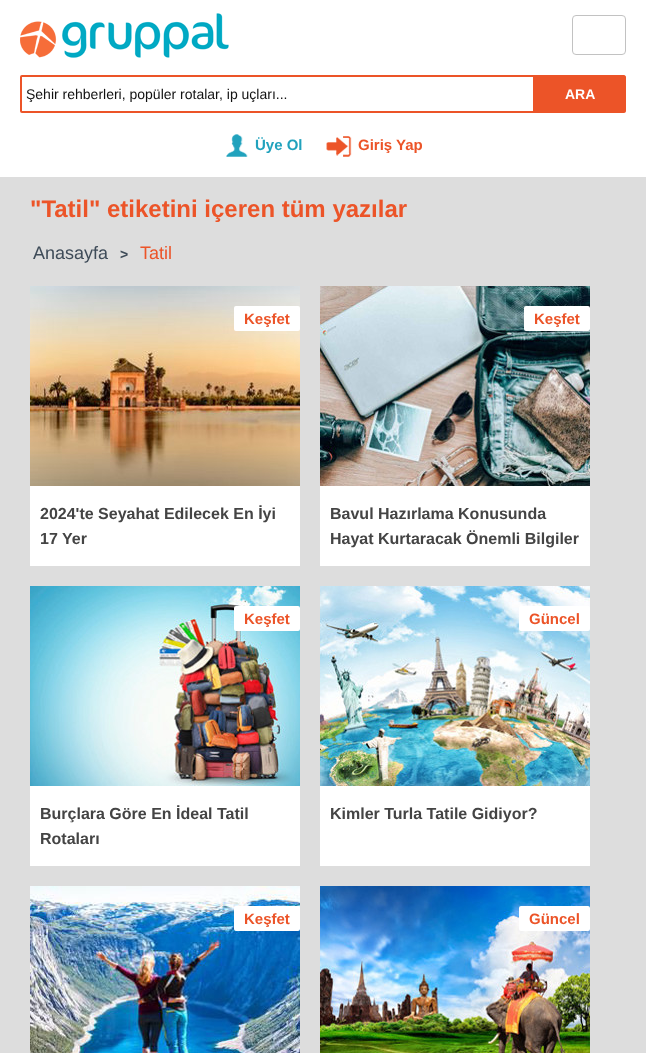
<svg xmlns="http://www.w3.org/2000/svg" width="646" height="1053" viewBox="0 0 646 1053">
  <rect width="100%" height="100%" fill="#ddd"/>
  <path d="M0 0h646v177H0z" fill="#fff"/>
  <image x="20" y="13" width="209" height="45" href="img/1.png"/>
  <rect x="572.5" y="15.5" width="53" height="39" rx="3.5" fill="none" stroke="#c2c2c2"/>
  <path d="M22 76H534V112H22C21.5 112 21 111.5 21 111V77C21 76.5 21.5 76 22 76Z" fill="none" stroke="#ec5428" stroke-width="2"/>
  <path d="M535 75H624C625 75 626 76 626 77V111C626 112 625 113 624 113H535Z" fill="#ec5428"/>
  <image x="226" y="134" width="22" height="23" href="img/2.png"/>
  <image x="326" y="136" width="26" height="21" href="img/3.png"/>
  <path d="M30 486h270v80H30z" fill="#fff"/>
  <image x="30" y="286" width="270" height="200" href="img/4.png"/>
  <rect x="234" y="306" width="66" height="25" rx="2" fill="#fff"/>
  <path d="M320 486h270v80H320z" fill="#fff"/>
  <image x="320" y="286" width="270" height="200" href="img/5.png"/>
  <rect x="524" y="306" width="66" height="25" rx="2" fill="#fff"/>
  <path d="M30 786h270v80H30z" fill="#fff"/>
  <image x="30" y="586" width="270" height="200" href="img/6.png"/>
  <rect x="234" y="606" width="66" height="25" rx="2" fill="#fff"/>
  <path d="M320 786h270v80H320z" fill="#fff"/>
  <image x="320" y="586" width="270" height="200" href="img/7.png"/>
  <rect x="519" y="606" width="71" height="25" rx="2" fill="#fff"/>
  <image x="30" y="886" width="270" height="167" href="img/8.png"/>
  <rect x="234" y="906" width="66" height="25" rx="2" fill="#fff"/>
  <image x="320" y="886" width="270" height="167" href="img/9.png"/>
  <rect x="519" y="906" width="71" height="25" rx="2" fill="#fff"/>
  <text x="26" y="99" font-family="Liberation Sans" font-size="14" fill="#111">Şehir rehberleri, popüler rotalar, ip uçları...</text>
  <text x="565" y="99" font-family="Liberation Sans" font-size="14" font-weight="bold" fill="#fff">ARA</text>
  <text x="255" y="150" font-family="Liberation Sans" font-size="15" font-weight="bold" fill="#21a2bd">Üye Ol</text>
  <text x="358" y="150" font-family="Liberation Sans" font-size="15" font-weight="bold" fill="#ec5428">Giriş Yap</text>
  <text x="30" y="217" font-family="Liberation Sans" font-size="24" font-weight="bold" fill="#ec5428">"Tatil" etiketini içeren tüm yazılar</text>
  <text x="33" y="259" font-family="Liberation Sans" font-size="18" fill="#3f4c59">Anasayfa</text>
  <text x="120" y="259" font-family="Liberation Sans" font-size="14" font-weight="bold" fill="#3f4c59">&gt;</text>
  <text x="140" y="259" font-family="Liberation Sans" font-size="18" fill="#ec5428">Tatil</text>
  <text x="244" y="324" font-family="Liberation Sans" font-size="15" font-weight="bold" fill="#ec5428">Keşfet</text>
  <g font-family="Liberation Sans" font-size="16" font-weight="bold" fill="#444">
    <text x="40" y="519">2024'te Seyahat Edilecek En İyi</text>
    <text x="40" y="544">17 Yer</text>
  </g>
  <text x="534" y="324" font-family="Liberation Sans" font-size="15" font-weight="bold" fill="#ec5428">Keşfet</text>
  <g font-family="Liberation Sans" font-size="16" font-weight="bold" fill="#444">
    <text x="330" y="519">Bavul Hazırlama Konusunda</text>
    <text x="330" y="544">Hayat Kurtaracak Önemli Bilgiler</text>
  </g>
  <text x="244" y="624" font-family="Liberation Sans" font-size="15" font-weight="bold" fill="#ec5428">Keşfet</text>
  <g font-family="Liberation Sans" font-size="16" font-weight="bold" fill="#444">
    <text x="40" y="819">Burçlara Göre En İdeal Tatil</text>
    <text x="40" y="844">Rotaları</text>
  </g>
  <text x="529" y="624" font-family="Liberation Sans" font-size="15" font-weight="bold" fill="#ec5428">Güncel</text>
  <text x="330" y="819" font-family="Liberation Sans" font-size="16" font-weight="bold" fill="#444">Kimler Turla Tatile Gidiyor?</text>
  <g font-family="Liberation Sans" font-size="15" font-weight="bold" fill="#ec5428">
    <text x="244" y="924">Keşfet</text>
    <text x="529" y="924">Güncel</text>
  </g>
</svg>
